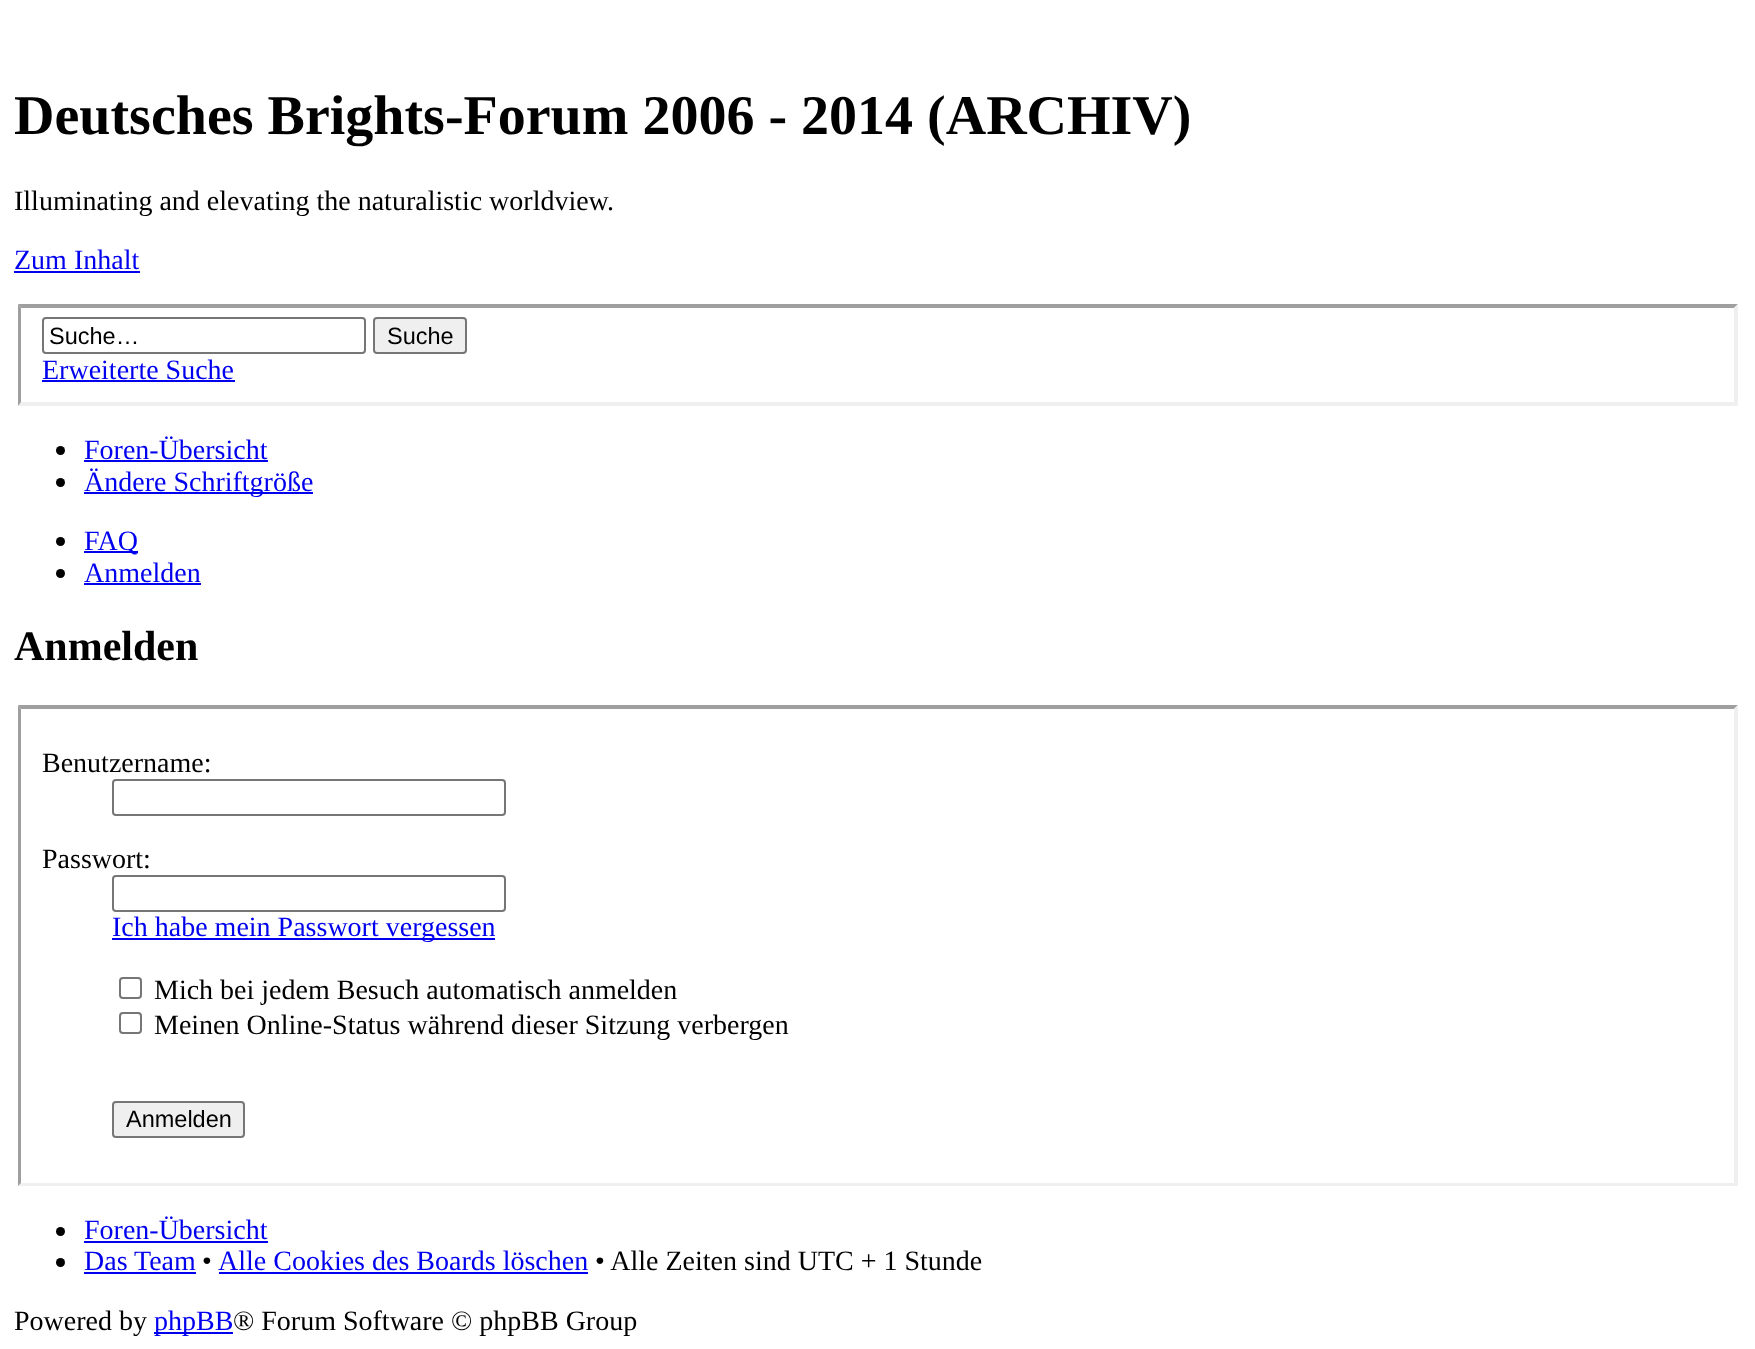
<svg xmlns="http://www.w3.org/2000/svg" width="1755" height="1349" viewBox="0 0 1755 1349">
  <rect width="100%" height="100%" fill="#fff"/>
  <path d="M14 271h126v2H14z" fill="#00e"/>
  <path d="M18 304H1738L1734 308H21Z" fill="#9f9f9f"/>
  <path d="M1738 304V406L1734 402V308Z" fill="#efefef"/>
  <path d="M1738 406H18L21 402H1734Z" fill="#efefef"/>
  <path d="M18 406V304L21 308V402Z" fill="#9f9f9f"/>
  <rect x="43" y="318" width="322" height="35" rx="3" fill="none" stroke="#767676" stroke-width="2"/>
  <rect x="374" y="318" width="92" height="35" rx="3" fill="#efefef" stroke="#767676" stroke-width="2"/>
  <path d="M42 380h193v2H42z" fill="#00e"/>
  <circle cx="60.5" cy="450.5" r="4.5" fill="#000"/>
  <path d="M84 460h184v2H84z" fill="#00e"/>
  <circle cx="60.5" cy="482.5" r="4.5" fill="#000"/>
  <path d="M84 492h229v2H84z" fill="#00e"/>
  <circle cx="60.5" cy="541.5" r="4.5" fill="#000"/>
  <path d="M84 551h54v2H84z" fill="#00e"/>
  <circle cx="60.5" cy="573.5" r="4.5" fill="#000"/>
  <path d="M84 583h117v2H84z" fill="#00e"/>
  <path d="M18 705H1738L1734 709H21Z" fill="#9f9f9f"/>
  <path d="M1738 705V1186L1734 1183V709Z" fill="#efefef"/>
  <path d="M1738 1186H18L21 1183H1734Z" fill="#efefef"/>
  <path d="M18 1186V705L21 709V1183Z" fill="#9f9f9f"/>
  <rect x="113" y="780" width="392" height="35" rx="3" fill="none" stroke="#767676" stroke-width="2"/>
  <rect x="113" y="876" width="392" height="35" rx="3" fill="none" stroke="#767676" stroke-width="2"/>
  <path d="M112 938h383v2H112z" fill="#00e"/>
  <rect x="120" y="978" width="21" height="20" rx="3" fill="none" stroke="#767676" stroke-width="2"/>
  <rect x="120" y="1013" width="21" height="20" rx="3" fill="none" stroke="#767676" stroke-width="2"/>
  <rect x="113" y="1102" width="131" height="35" rx="3" fill="#efefef" stroke="#767676" stroke-width="2"/>
  <circle cx="60.5" cy="1231.5" r="4.5" fill="#000"/>
  <path d="M84 1241h184v2H84z" fill="#00e"/>
  <circle cx="60.5" cy="1262.5" r="4.5" fill="#000"/>
  <path d="M84 1272h112v2H84z" fill="#00e"/>
  <path d="M219 1272h369v2H219z" fill="#00e"/>
  <path d="M154 1332h79v2H154z" fill="#00e"/>
  <text x="14" y="134" font-family="Liberation Serif" font-size="56" font-weight="bold" fill="#000">Deutsches Brights-Forum 2006 - 2014 (ARCHIV)</text>
  <text x="14" y="210" font-family="Liberation Serif" font-size="28" fill="#000">Illuminating and elevating the naturalistic worldview.</text>
  <text x="14" y="269" font-family="Liberation Serif" font-size="28" fill="#00e">Zum Inhalt</text>
  <g font-family="Liberation Sans" font-size="23.5" fill="#000">
    <text x="49" y="344">Suche…</text>
    <text x="387" y="344">Suche</text>
  </g>
  <g font-family="Liberation Serif" font-size="28" fill="#00e">
    <text x="42" y="379">Erweiterte Suche</text>
    <text x="84" y="459">Foren-Übersicht</text>
    <text x="84" y="491">Ändere Schriftgröße</text>
    <text x="84" y="550">FAQ</text>
    <text x="84" y="582">Anmelden</text>
  </g>
  <text x="14" y="660" font-family="Liberation Serif" font-size="42" font-weight="bold" fill="#000">Anmelden</text>
  <g font-family="Liberation Serif" font-size="28" fill="#000">
    <text x="42" y="772">Benutzername:</text>
    <text x="42" y="868">Passwort:</text>
  </g>
  <text x="112" y="936" font-family="Liberation Serif" font-size="28" fill="#00e">Ich habe mein Passwort vergessen</text>
  <g font-family="Liberation Serif" font-size="28" fill="#000">
    <text x="154" y="999">Mich bei jedem Besuch automatisch anmelden</text>
    <text x="154" y="1034">Meinen Online-Status während dieser Sitzung verbergen</text>
  </g>
  <text x="126" y="1127" font-family="Liberation Sans" font-size="23.5" fill="#000">Anmelden</text>
  <g font-family="Liberation Serif" font-size="28" fill="#00e">
    <text x="84" y="1239">Foren-Übersicht</text>
    <text x="84" y="1270">Das Team</text>
  </g>
  <text x="202" y="1270" font-family="Liberation Serif" font-size="28" fill="#000">•</text>
  <text x="218" y="1270" font-family="Liberation Serif" font-size="28" fill="#00e">Alle Cookies des Boards löschen</text>
  <g font-family="Liberation Serif" font-size="28" fill="#000">
    <text x="595" y="1270">• Alle Zeiten sind UTC + 1 Stunde</text>
    <text x="14" y="1330">Powered by</text>
  </g>
  <text x="154" y="1330" font-family="Liberation Serif" font-size="28" fill="#00e">phpBB</text>
  <text x="233" y="1330" font-family="Liberation Serif" font-size="28" fill="#000">® Forum Software © phpBB Group</text>
</svg>
